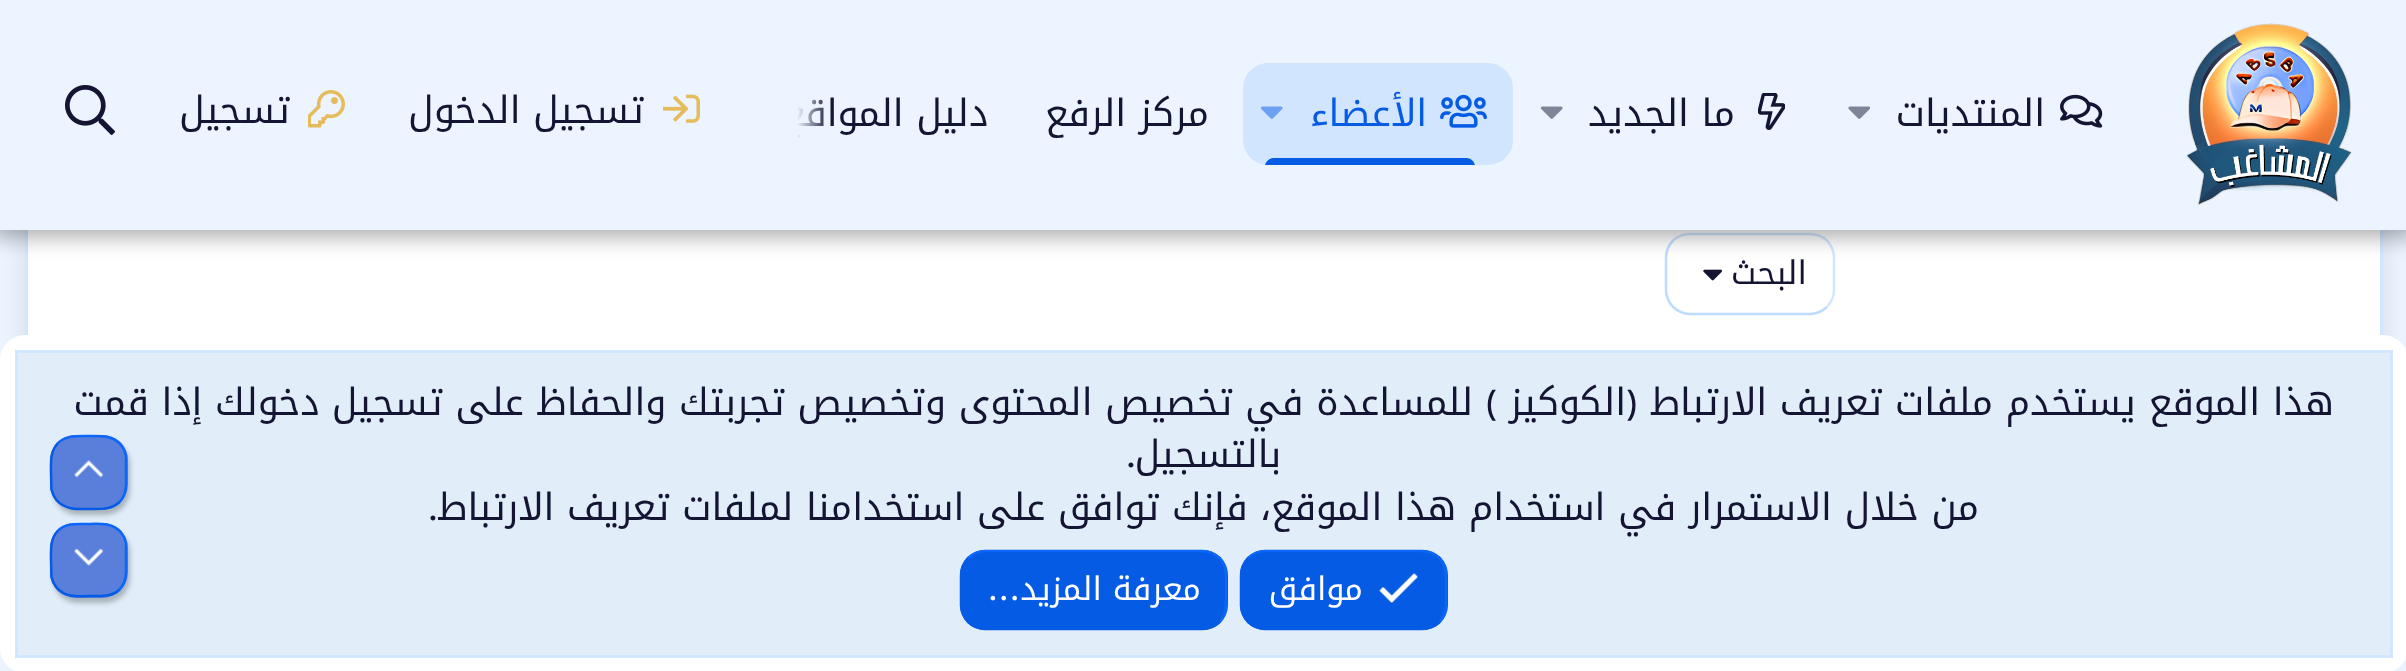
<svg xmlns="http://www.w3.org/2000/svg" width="2406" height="671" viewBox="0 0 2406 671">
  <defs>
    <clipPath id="clip1"><path d="M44 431H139V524H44ZM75 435H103C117 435 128 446 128 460V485C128 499 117 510 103 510H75C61 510 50 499 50 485V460C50 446 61 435 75 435Z" clip-rule="evenodd"/></clipPath>
    <clipPath id="clip2"><path d="M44 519H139V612H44ZM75 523H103C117 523 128 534 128 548V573C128 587 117 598 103 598H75C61 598 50 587 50 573V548C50 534 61 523 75 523Z" clip-rule="evenodd"/></clipPath>
    <linearGradient id="g1" gradientUnits="userSpaceOnUse" x1="830" y1="114" x2="730" y2="114"><stop offset="0" stop-color="#ebf4ff" stop-opacity="0"/><stop offset="0.33" stop-color="#ebf4ff"/></linearGradient>
  </defs>
  <rect width="100%" height="100%" fill="#ebf4ff"/>
  <rect x="25" y="-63" width="2358" height="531" rx="25" fill="#0000001a" filter="blur(12.5px)"/>
  <path d="M28 230h2352v105H28z" fill="#fff"/>
  <path d="M26.5 -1.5h2355v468H26.5z" fill="none" stroke="#d1e6ff" stroke-width="3"/>
  <circle cx="2100" cy="3" r="240" fill="#fff"/>
  <path d="M1673 240.5C1677.5 236.5 1683.5 234 1690 234H1810C1816.5 234 1822.5 236.5 1827 240.5C1831 245 1834 251 1834 257.5V290C1834 296.5 1831 302.5 1827 307" fill="none" stroke="#d1e6ff" stroke-width="2.5"/>
  <path d="M1827 307C1822.5 311 1816.5 314 1810 314H1690C1683.5 314 1677.5 311 1673 307C1669 302.5 1666 296.5 1666 290V257.5C1666 251 1669 245 1673 240.5" fill="none" stroke="#bddbff" stroke-width="2.5"/>
  <path d="M-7 -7h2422v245H-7z" fill="#0000004d" filter="blur(10px)"/>
  <path d="M0 0h2406v230H0z" fill="#ebf4ff"/>
  <image x="2186" y="23" width="166" height="183" href="img/1.png"/>
  <image x="2060" y="94" width="43" height="34" href="img/2.png"/>
  <image x="1848" y="106" width="22" height="13" href="img/3.png"/>
  <image x="1758" y="93" width="27" height="37" href="img/4.png"/>
  <image x="1540" y="106" width="23" height="13" href="img/5.png"/>
  <rect x="1243" y="63" width="270" height="102" rx="25" fill="#d2e5fe"/>
  <image x="1440" y="94" width="47" height="34" href="img/6.png"/>
  <path d="M1273.5 158H1466.5C1471 158 1475 162 1475 166.5V165H1265V166.5C1265 162 1269 158 1273.5 158Z" fill="#065be5"/>
  <image x="1260" y="106" width="23" height="13" href="img/7.png"/>
  <image x="663" y="94" width="37" height="29" href="img/8.png"/>
  <image x="308" y="90" width="37" height="38" href="img/9.png"/>
  <image x="65" y="85" width="50" height="50" href="img/10.png"/>
  <image x="1703" y="269" width="19" height="12" href="img/11.png"/>
  <rect y="335" width="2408" height="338" rx="25" fill="#fff"/>
  <path d="M16.5 351.5h2375v305H16.5z" fill="#e1eef9" stroke="#d1e6ff" stroke-width="3"/>
  <rect x="1240" y="550" width="208" height="80" rx="25" fill="#065be5"/>
  <path d="M1248 558C1252.5 554 1258.5 551 1265 551H1422.5C1429 551 1435 554 1439.5 558C1443.5 562.5 1446 568.5 1446 575V605C1446 611.5 1443.5 617.5 1439.5 622" fill="none" stroke="#0b66f9" stroke-width="2.5"/>
  <path d="M1439.5 622C1435 626 1429 629 1422.5 629H1265C1258.5 629 1252.5 626 1248 622C1244 617.5 1241 611.5 1241 605V575C1241 568.5 1244 562.5 1248 558" fill="none" stroke="#065be5" stroke-width="2.5"/>
  <image x="1379" y="573" width="39" height="30" href="img/12.png"/>
  <rect x="960" y="550" width="268" height="80" rx="25" fill="#065be5"/>
  <path d="M968 558C972.5 554 978.5 551 985 551H1202.5C1209 551 1215 554 1219.5 558C1223.5 562.5 1226 568.5 1226 575V605C1226 611.5 1223.5 617.5 1219.5 622" fill="none" stroke="#0b66f9" stroke-width="2.5"/>
  <path d="M1219.5 622C1215 626 1209 629 1202.5 629H985C978.5 629 972.5 626 968 622C964 617.5 961 611.5 961 605V575C961 568.5 964 562.5 968 558" fill="none" stroke="#065be5" stroke-width="2.5"/>
  <g clip-path="url(#clip1)">
    <rect x="53" y="440" width="77" height="75" rx="25" fill="#00000040" filter="blur(2.5px)"/>
  </g>
  <rect x="50" y="435" width="78" height="75" rx="25" fill="#3763d2cc"/>
  <path d="M58 443C65.5 436 74.5 436 84 436C97 436 111.5 434 121 445C123.5 448 125 451.5 126 455.5V472.5C126 483 127.5 493.5 119.5 502" fill="none" stroke="#0b66f9" stroke-width="2.5"/>
  <path d="M119.5 502C112 509 103 509 93.5 509C80.5 509 66 511 56.5 500C54 497 52.5 493.5 51.5 489.5L51 472.5C51 462 50 451.5 58 443" fill="none" stroke="#065be5" stroke-width="2.5"/>
  <image x="74" y="460" width="30" height="18" href="img/13.png"/>
  <g clip-path="url(#clip2)">
    <rect x="53" y="528" width="77" height="75" rx="25" fill="#00000040" filter="blur(2.5px)"/>
  </g>
  <rect x="50" y="523" width="78" height="75" rx="25" fill="#3763d2cc"/>
  <path d="M58 530.5C65.5 523.5 74.5 524 84 524C97 524 111.5 521.5 121 532.5C123.5 535.5 125 539 126 543V560C126 570.5 127.5 581 119.5 589.5" fill="none" stroke="#0b66f9" stroke-width="2.5"/>
  <path d="M119.5 589.5C112 596.5 103 596 93.5 596C80.5 596 66 598.5 56.5 587.5C54 584.5 52.5 581 51.5 577L51 560C51 549.5 50 539 58 530.5" fill="none" stroke="#065be5" stroke-width="2.5"/>
  <image x="74" y="548" width="30" height="18" href="img/14.png"/>
  <g font-family="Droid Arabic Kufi" font-size="37.5" direction="rtl" fill="#141433">
    <text x="2045" y="126">المنتديات</text>
    <text x="1735" y="126">ما الجديد</text>
  </g>
  <text x="1427" y="126" font-family="Droid Arabic Kufi" font-size="37.5" direction="rtl" fill="#065be5">الأعضاء</text>
  <g font-family="Droid Arabic Kufi" font-size="37.5" direction="rtl" fill="#141433">
    <text x="1209" y="126">مركز الرفع</text>
    <text x="988" y="126">دليل المواقع</text>
  </g>
  <path d="M784 99h40v39H784z" fill="url(#g1)"/>
  <g font-family="Droid Arabic Kufi" font-size="37.5" direction="rtl" fill="#141433">
    <text x="644" y="123">تسجيل الدخول</text>
    <text x="290" y="123">تسجيل</text>
  </g>
  <text x="1807" y="284" font-family="Droid Arabic Kufi" font-size="32.5" direction="rtl" fill="#141433">البحث</text>
  <text x="2334" y="415" font-family="Droid Arabic Kufi" font-size="37.5" direction="rtl" fill="#141433">هذا الموقع يستخدم ملفات تعريف الارتباط</text>
  <text x="1637" y="415" font-family="Funnel Sans" font-size="37.5" direction="rtl" fill="#141433">(</text>
  <text x="1626" y="415" font-family="Droid Arabic Kufi" font-size="37.5" direction="rtl" fill="#141433">الكوكيز</text>
  <text x="1497" y="415" font-family="Funnel Sans" font-size="37.5" direction="rtl" fill="#141433">)</text>
  <g font-family="Droid Arabic Kufi" font-size="37.5" direction="rtl" fill="#141433">
    <text x="1473" y="415">للمساعدة في تخصيص المحتوى وتخصيص تجربتك والحفاظ على تسجيل دخولك إذا قمت</text>
    <text x="1281" y="467">بالتسجيل</text>
  </g>
  <text x="1135" y="467" font-family="Funnel Sans" font-size="37.5" direction="rtl" fill="#141433">.</text>
  <text x="1979" y="520" font-family="Droid Arabic Kufi" font-size="37.5" direction="rtl" fill="#141433">من خلال الاستمرار في استخدام هذا الموقع، فإنك توافق على استخدامنا لملفات تعريف الارتباط</text>
  <text x="437" y="520" font-family="Funnel Sans" font-size="37.5" direction="rtl" fill="#141433">.</text>
  <g font-family="Droid Arabic Kufi" font-size="32.5" direction="rtl" fill="#fff">
    <text x="1363" y="600">موافق</text>
    <text x="1201" y="600">معرفة المزيد</text>
  </g>
  <text x="1020" y="600" font-family="Funnel Sans" font-size="32.5" font-weight="500" direction="rtl" fill="#fff">…</text>
</svg>
